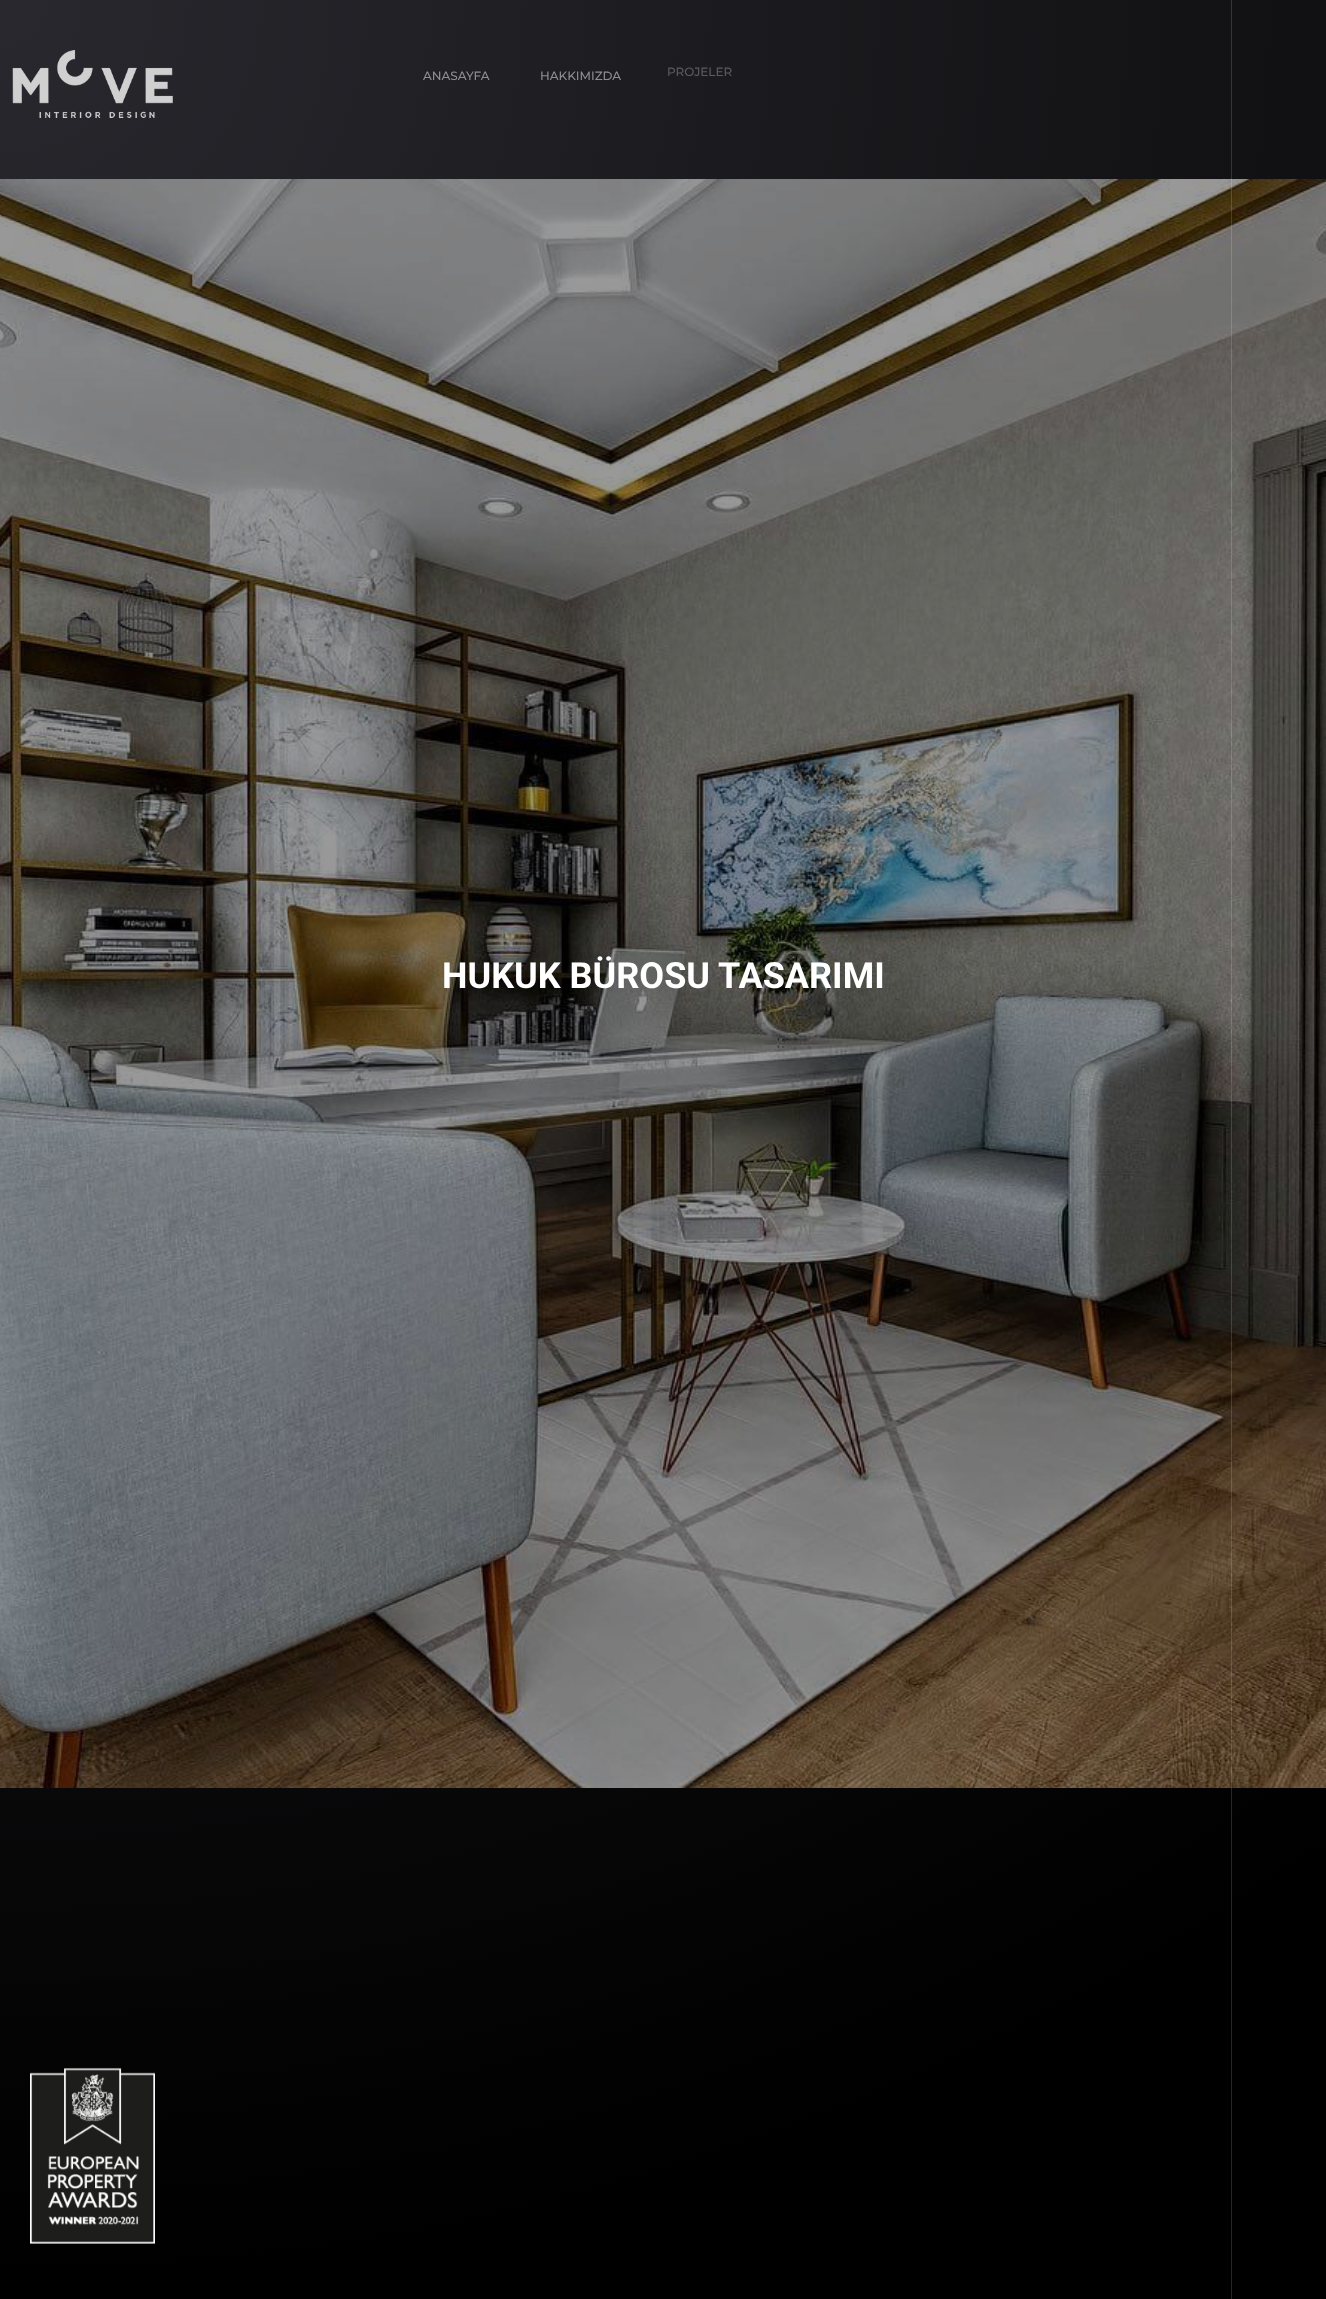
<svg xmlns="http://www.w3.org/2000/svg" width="1326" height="2299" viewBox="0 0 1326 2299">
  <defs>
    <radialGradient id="g1" gradientUnits="userSpaceOnUse" cx="0" cy="0" r="3251"><stop offset="0" stop-color="#28282e"/><stop offset="0.7" stop-color="#000"/></radialGradient>
  </defs>
  <rect width="100%" height="100%" fill="#fff"/>
  <path d="M0 0h1326v2299H0z" fill="url(#g1)"/>
  <image x="12" y="50" width="161" height="68" href="img/1.png"/>
  <image x="0" y="179" width="1326" height="1609" href="img/2.png"/>
  <path d="M1231 0h1v2299H1231z" fill="#ffffff26"/>
  <image x="30" y="2067" width="125" height="177" href="img/3.png"/>
  <g font-family="Montserrat" font-size="12" font-weight="500" fill="#8f8f92">
    <text x="423" y="80">ANASAYFA</text>
    <text x="540" y="80">HAKKIMIZDA</text>
  </g>
  <text x="667" y="76" font-family="Montserrat" font-size="12" font-weight="500" fill="#5c5c5f">PROJELER</text>
  <text x="442" y="988" font-family="Roboto" font-size="36" font-weight="bold" fill="#fff">HUKUK BÜROSU TASARIMI</text>
</svg>
